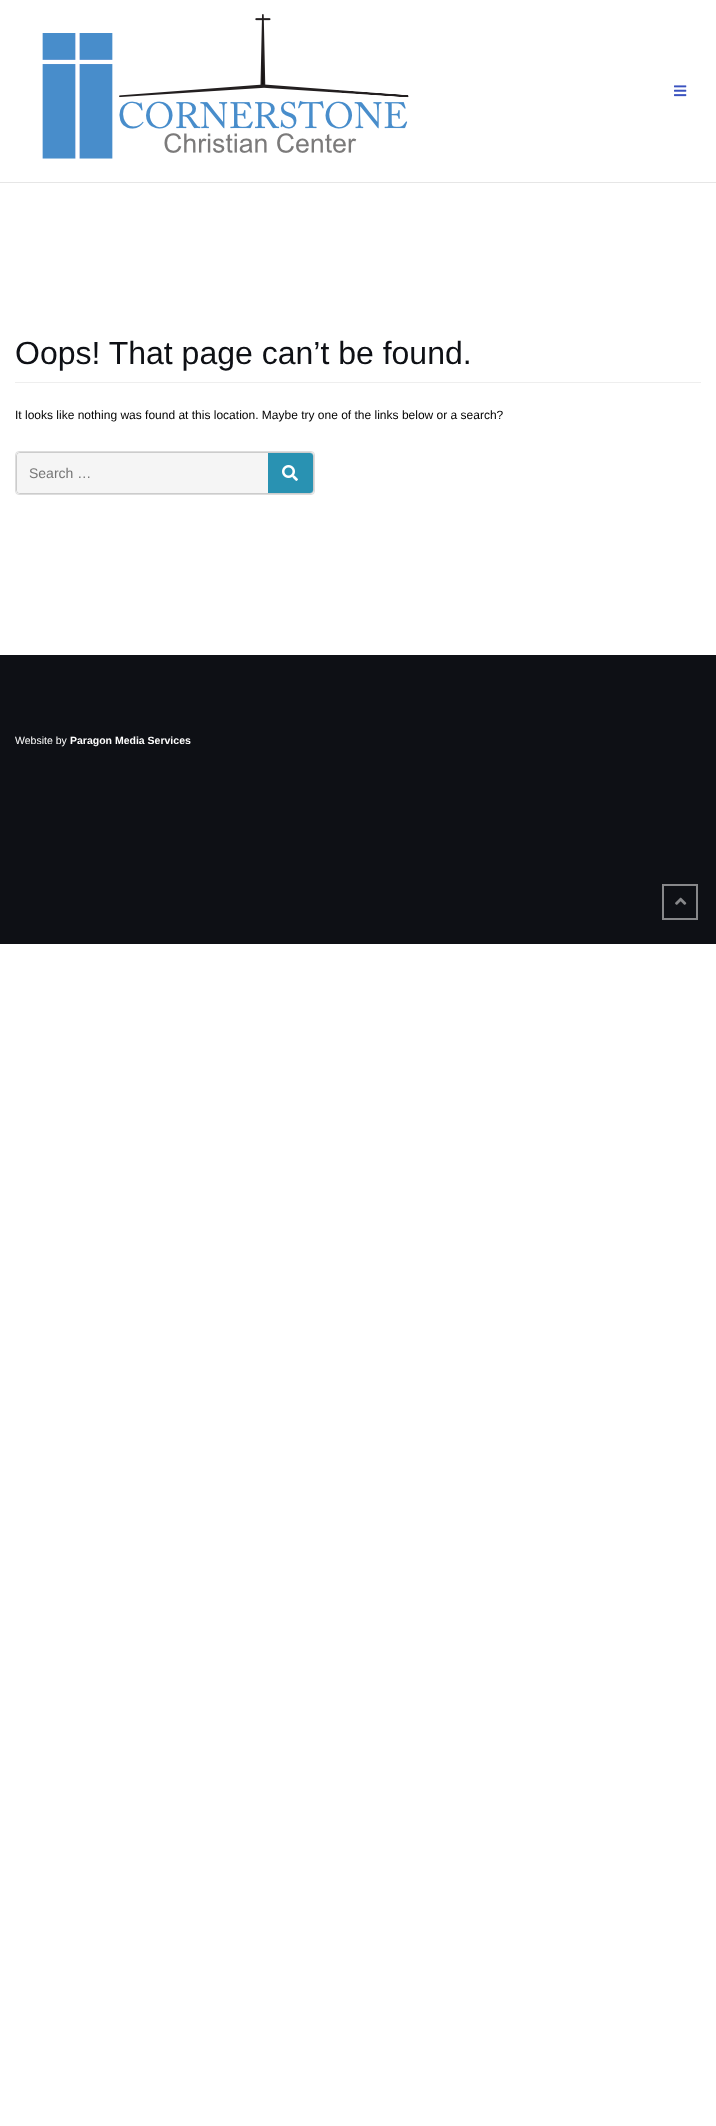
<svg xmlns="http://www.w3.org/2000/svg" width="716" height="2126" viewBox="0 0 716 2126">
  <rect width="100%" height="100%" fill="#fff"/>
  <path d="M0 182h716v1H0z" fill="#e6e6e6"/>
  <image x="42" y="14" width="367" height="145" href="img/1.png"/>
  <image x="674" y="85" width="13" height="12" href="img/2.png"/>
  <path d="M15 382h686v1H15z" fill="#eee"/>
  <rect x="15.5" y="451.5" width="299" height="43" rx="3.5" fill="none" stroke="#ddd"/>
  <rect x="16.5" y="452.5" width="297" height="41" rx="3.5" fill="none" stroke="#ccc"/>
  <path d="M20 453H268V493H20C18.5 493 17 491.5 17 490V456C17 454.5 18.5 453 20 453Z" fill="#f5f5f5"/>
  <path d="M268 453V493H310C312 493 313 492 313 490V456C313 454 312 453 310 453Z" fill="#2992b2"/>
  <image x="282" y="465" width="16" height="16" href="img/3.png"/>
  <path d="M0 655h716v289H0z" fill="#0e1015"/>
  <path d="M663 885h34v34H663z" fill="none" stroke="#87888a" stroke-width="2"/>
  <image x="675" y="897" width="12" height="8" href="img/4.png"/>
  <text x="15" y="364" font-family="Liberation Sans" font-size="32" fill="#0e1015">Oops! That page can’t be found.</text>
  <text x="15" y="419" font-family="Liberation Sans" font-size="12" fill="#000">It looks like nothing was found at this location. Maybe try one of the links below or a search?</text>
  <text x="29" y="478" font-family="Liberation Sans" font-size="14" fill="#757575">Search …</text>
  <text x="15" y="744" font-family="Liberation Sans" font-size="10.5" fill="#fefefe">Website by</text>
  <text x="70" y="744" font-family="Liberation Sans" font-size="10.5" font-weight="bold" fill="#fefefe">Paragon Media Services</text>
</svg>
